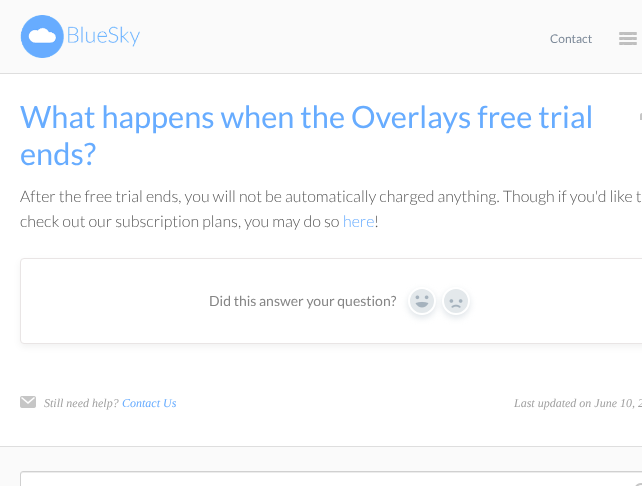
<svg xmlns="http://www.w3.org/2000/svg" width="642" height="486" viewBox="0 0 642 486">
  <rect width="100%" height="100%" fill="#fafafa"/>
  <image x="20" y="15" width="120" height="43" href="img/1.png"/>
  <path d="M619 33.5C618 35.5 622.5 35 622.5 35H633.5C633.5 35 638 35.5 637 33.5C636 34.5 629.5 34 628 34C626.5 34 620 34.5 619 33.5Z" fill="#bcbcbc"/>
  <rect x="619" y="32" width="18" height="2" rx="1" fill="#c0c0c0"/>
  <path d="M619 38.5C618 40.5 622.5 40 622.5 40H633.5C633.5 40 638 40.5 637 38.5C636 39.5 629.5 39 628 39C626.5 39 620 39.5 619 38.5Z" fill="#bcbcbc"/>
  <rect x="619" y="37" width="18" height="2" rx="1" fill="#c0c0c0"/>
  <path d="M619 43.5C618 45.5 622.5 45 622.5 45H633.5C633.5 45 638 45.5 637 43.5C636 44.5 629.5 44 628 44C626.5 44 620 44.5 619 43.5Z" fill="#bcbcbc"/>
  <rect x="619" y="42" width="18" height="2" rx="1" fill="#c0c0c0"/>
  <path d="M0 74h642v372H0z" fill="#fff"/>
  <path d="M0 73h642v1H0z" fill="#dedede"/>
  <path d="M0 446h642v1H0z" fill="#dedede"/>
  <image x="640" y="113" width="2" height="7" href="img/2.png"/>
  <rect x="20" y="261" width="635" height="86" rx="4" fill="#0000000d" filter="blur(3px)"/>
  <rect x="20.5" y="258.5" width="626" height="85" rx="3.5" fill="#fff" stroke="#e9e5e5"/>
  <rect x="408" y="290" width="28" height="28" rx="14" fill="#c1cbd480" filter="blur(3px)"/>
  <circle cx="422" cy="301" r="13" fill="#e3e8eb" stroke="#fff" stroke-width="2"/>
  <image x="415" y="295" width="14" height="13" href="img/3.png"/>
  <rect x="442" y="290" width="28" height="28" rx="14" fill="#c1cbd480" filter="blur(3px)"/>
  <circle cx="456" cy="301" r="13" fill="#e3e8eb" stroke="#fff" stroke-width="2"/>
  <image x="449" y="299" width="14" height="9" href="img/4.png"/>
  <image x="20" y="396" width="16" height="12" href="img/5.png"/>
  <rect x="20" y="471" width="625" height="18" rx="3" fill="#fff"/>
  <path d="M23 473H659C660 473 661 474 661 475C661 474 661 472 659 472H23C21 472 21 474 21 475C21 474 22 473 23 473Z" fill="#ececec"/>
  <rect x="20.5" y="471.5" width="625" height="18" rx="2.5" fill="none" stroke="#d0d0d0"/>
  <image x="635" y="483" width="7" height="3" href="img/6.png"/>
  <text x="550" y="43" font-family="Lato" font-size="12" fill="#7c8998">Contact</text>
  <g font-family="Lato" font-size="30.75" fill="#67acff">
    <text x="20" y="128">What happens when the Overlays free trial</text>
    <text x="20" y="165">ends?</text>
  </g>
  <g font-family="Lato" font-size="16" font-weight="300" fill="#585858">
    <text x="20" y="202">After the free trial ends, you will not be automatically charged anything. Though if you'd like t</text>
    <text x="20" y="227">check out our subscription plans, you may do so</text>
  </g>
  <text x="343" y="227" font-family="Lato" font-size="16" font-weight="300" fill="#67acff">here</text>
  <text x="374" y="227" font-family="Lato" font-size="16" font-weight="300" fill="#585858">!</text>
  <text x="209" y="306" font-family="Lato" font-size="14" fill="#858585">Did this answer your question?</text>
  <text x="44" y="407" font-family="Liberation Serif" font-size="12" font-style="italic" fill="#a0a0a0">Still need help?</text>
  <text x="122" y="407" font-family="Liberation Serif" font-size="12" font-style="italic" fill="#67acff">Contact Us</text>
  <text x="514" y="407" font-family="Liberation Serif" font-size="12" font-style="italic" fill="#a0a0a0">Last updated on June 10, 2</text>
</svg>
